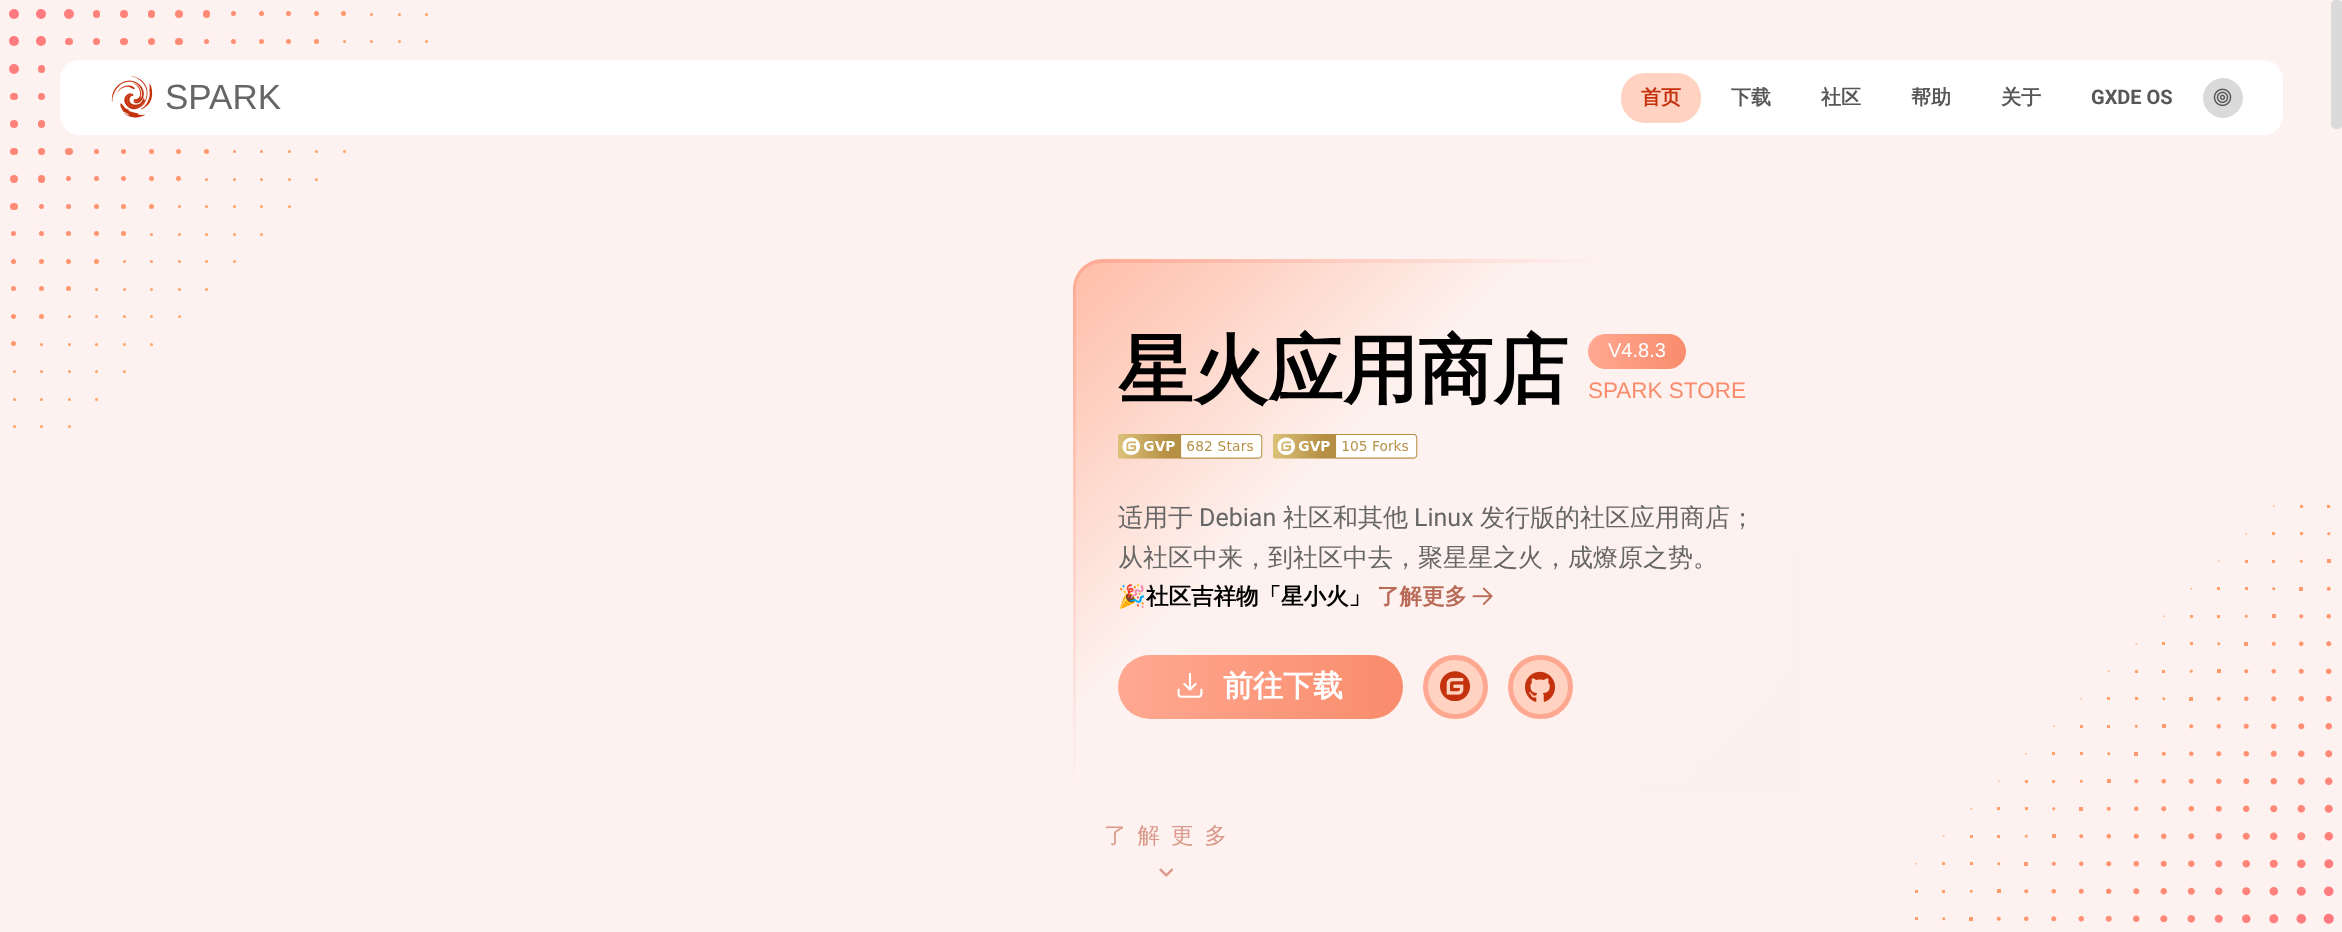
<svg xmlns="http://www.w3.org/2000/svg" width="2342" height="932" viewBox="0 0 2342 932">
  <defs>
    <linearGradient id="g1" gradientUnits="userSpaceOnUse" x1="1121" y1="211" x2="1752" y2="842"><stop offset="0" stop-color="#ffa891"/><stop offset="0.42" stop-color="#fdf1f0"/></linearGradient>
    <linearGradient id="g2" gradientUnits="userSpaceOnUse" x1="1124" y1="214" x2="1748" y2="838"><stop offset="0" stop-color="#ffbda7"/><stop offset="0.36" stop-color="#fdf2ef"/><stop offset="0.5" stop-color="#fdf2ef"/><stop offset="1" stop-color="#fdf2ef" stop-opacity="0"/></linearGradient>
    <linearGradient id="g3" gradientUnits="userSpaceOnUse" x1="1588" y1="351" x2="1686" y2="351"><stop offset="0" stop-color="#ffa891"/><stop offset="1" stop-color="#f98c6c"/></linearGradient>
    <linearGradient id="g4" gradientUnits="userSpaceOnUse" x1="1118" y1="687" x2="1403" y2="687"><stop offset="0" stop-color="#ffa891"/><stop offset="1" stop-color="#f98c6c"/></linearGradient>
    <linearGradient id="g5" gradientUnits="userSpaceOnUse" x1="9" y1="9" x2="169" y2="169"><stop offset="0" stop-color="#ff7682"/><stop offset="1" stop-color="#ffc950"/></linearGradient>
    <linearGradient id="g6" gradientUnits="userSpaceOnUse" x1="27" y1="9" x2="179" y2="161"><stop offset="0" stop-color="#ff7682"/><stop offset="1" stop-color="#ffc950"/></linearGradient>
    <linearGradient id="g7" gradientUnits="userSpaceOnUse" x1="46" y1="9" x2="191" y2="154"><stop offset="0" stop-color="#ff7682"/><stop offset="1" stop-color="#ffc950"/></linearGradient>
    <linearGradient id="g8" gradientUnits="userSpaceOnUse" x1="66" y1="9" x2="203" y2="146"><stop offset="0" stop-color="#ff7682"/><stop offset="1" stop-color="#ffc950"/></linearGradient>
    <linearGradient id="g9" gradientUnits="userSpaceOnUse" x1="88" y1="10" x2="216" y2="138"><stop offset="0" stop-color="#ff7682"/><stop offset="1" stop-color="#ffc950"/></linearGradient>
    <linearGradient id="g10" gradientUnits="userSpaceOnUse" x1="110" y1="10" x2="230" y2="131"><stop offset="0" stop-color="#ff7682"/><stop offset="1" stop-color="#ffc950"/></linearGradient>
    <linearGradient id="g11" gradientUnits="userSpaceOnUse" x1="133" y1="10" x2="246" y2="123"><stop offset="0" stop-color="#ff7682"/><stop offset="1" stop-color="#ffc950"/></linearGradient>
    <linearGradient id="g12" gradientUnits="userSpaceOnUse" x1="157" y1="10" x2="262" y2="115"><stop offset="0" stop-color="#ff7682"/><stop offset="1" stop-color="#ffc950"/></linearGradient>
    <linearGradient id="g13" gradientUnits="userSpaceOnUse" x1="182" y1="11" x2="279" y2="108"><stop offset="0" stop-color="#ff7682"/><stop offset="1" stop-color="#ffc950"/></linearGradient>
    <linearGradient id="g14" gradientUnits="userSpaceOnUse" x1="208" y1="11" x2="297" y2="100"><stop offset="0" stop-color="#ff7682"/><stop offset="1" stop-color="#ffc950"/></linearGradient>
    <linearGradient id="g15" gradientUnits="userSpaceOnUse" x1="236" y1="11" x2="317" y2="92"><stop offset="0" stop-color="#ff7682"/><stop offset="1" stop-color="#ffc950"/></linearGradient>
    <linearGradient id="g16" gradientUnits="userSpaceOnUse" x1="264" y1="11" x2="337" y2="85"><stop offset="0" stop-color="#ff7682"/><stop offset="1" stop-color="#ffc950"/></linearGradient>
    <linearGradient id="g17" gradientUnits="userSpaceOnUse" x1="293" y1="12" x2="358" y2="77"><stop offset="0" stop-color="#ff7682"/><stop offset="1" stop-color="#ffc950"/></linearGradient>
    <linearGradient id="g18" gradientUnits="userSpaceOnUse" x1="323" y1="12" x2="380" y2="69"><stop offset="0" stop-color="#ff7682"/><stop offset="1" stop-color="#ffc950"/></linearGradient>
    <linearGradient id="g19" gradientUnits="userSpaceOnUse" x1="354" y1="12" x2="403" y2="61"><stop offset="0" stop-color="#ff7682"/><stop offset="1" stop-color="#ffc950"/></linearGradient>
    <linearGradient id="g20" gradientUnits="userSpaceOnUse" x1="386" y1="12" x2="428" y2="54"><stop offset="0" stop-color="#ff7682"/><stop offset="1" stop-color="#ffc950"/></linearGradient>
    <linearGradient id="g21" gradientUnits="userSpaceOnUse" x1="9" y1="27" x2="161" y2="179"><stop offset="0" stop-color="#ff7682"/><stop offset="1" stop-color="#ffc950"/></linearGradient>
    <linearGradient id="g22" gradientUnits="userSpaceOnUse" x1="28" y1="28" x2="172" y2="172"><stop offset="0" stop-color="#ff7682"/><stop offset="1" stop-color="#ffc950"/></linearGradient>
    <linearGradient id="g23" gradientUnits="userSpaceOnUse" x1="47" y1="28" x2="184" y2="165"><stop offset="0" stop-color="#ff7682"/><stop offset="1" stop-color="#ffc950"/></linearGradient>
    <linearGradient id="g24" gradientUnits="userSpaceOnUse" x1="68" y1="29" x2="197" y2="158"><stop offset="0" stop-color="#ff7682"/><stop offset="1" stop-color="#ffc950"/></linearGradient>
    <linearGradient id="g25" gradientUnits="userSpaceOnUse" x1="90" y1="30" x2="210" y2="151"><stop offset="0" stop-color="#ff7682"/><stop offset="1" stop-color="#ffc950"/></linearGradient>
    <linearGradient id="g26" gradientUnits="userSpaceOnUse" x1="113" y1="31" x2="225" y2="143"><stop offset="0" stop-color="#ff7682"/><stop offset="1" stop-color="#ffc950"/></linearGradient>
    <linearGradient id="g27" gradientUnits="userSpaceOnUse" x1="136" y1="31" x2="241" y2="136"><stop offset="0" stop-color="#ff7682"/><stop offset="1" stop-color="#ffc950"/></linearGradient>
    <linearGradient id="g28" gradientUnits="userSpaceOnUse" x1="161" y1="32" x2="258" y2="129"><stop offset="0" stop-color="#ff7682"/><stop offset="1" stop-color="#ffc950"/></linearGradient>
    <linearGradient id="g29" gradientUnits="userSpaceOnUse" x1="187" y1="33" x2="275" y2="122"><stop offset="0" stop-color="#ff7682"/><stop offset="1" stop-color="#ffc950"/></linearGradient>
    <linearGradient id="g30" gradientUnits="userSpaceOnUse" x1="213" y1="34" x2="294" y2="115"><stop offset="0" stop-color="#ff7682"/><stop offset="1" stop-color="#ffc950"/></linearGradient>
    <linearGradient id="g31" gradientUnits="userSpaceOnUse" x1="241" y1="34" x2="314" y2="107"><stop offset="0" stop-color="#ff7682"/><stop offset="1" stop-color="#ffc950"/></linearGradient>
    <linearGradient id="g32" gradientUnits="userSpaceOnUse" x1="269" y1="35" x2="335" y2="100"><stop offset="0" stop-color="#ff7682"/><stop offset="1" stop-color="#ffc950"/></linearGradient>
    <linearGradient id="g33" gradientUnits="userSpaceOnUse" x1="299" y1="36" x2="356" y2="93"><stop offset="0" stop-color="#ff7682"/><stop offset="1" stop-color="#ffc950"/></linearGradient>
    <linearGradient id="g34" gradientUnits="userSpaceOnUse" x1="330" y1="37" x2="379" y2="86"><stop offset="0" stop-color="#ff7682"/><stop offset="1" stop-color="#ffc950"/></linearGradient>
    <linearGradient id="g35" gradientUnits="userSpaceOnUse" x1="361" y1="37" x2="403" y2="79"><stop offset="0" stop-color="#ff7682"/><stop offset="1" stop-color="#ffc950"/></linearGradient>
    <linearGradient id="g36" gradientUnits="userSpaceOnUse" x1="394" y1="38" x2="427" y2="72"><stop offset="0" stop-color="#ff7682"/><stop offset="1" stop-color="#ffc950"/></linearGradient>
    <linearGradient id="g37" gradientUnits="userSpaceOnUse" x1="9" y1="46" x2="154" y2="191"><stop offset="0" stop-color="#ff7682"/><stop offset="1" stop-color="#ffc950"/></linearGradient>
    <linearGradient id="g38" gradientUnits="userSpaceOnUse" x1="28" y1="47" x2="165" y2="184"><stop offset="0" stop-color="#ff7682"/><stop offset="1" stop-color="#ffc950"/></linearGradient>
    <linearGradient id="g39" gradientUnits="userSpaceOnUse" x1="9" y1="66" x2="146" y2="203"><stop offset="0" stop-color="#ff7682"/><stop offset="1" stop-color="#ffc950"/></linearGradient>
    <linearGradient id="g40" gradientUnits="userSpaceOnUse" x1="29" y1="68" x2="158" y2="197"><stop offset="0" stop-color="#ff7682"/><stop offset="1" stop-color="#ffc950"/></linearGradient>
    <linearGradient id="g41" gradientUnits="userSpaceOnUse" x1="10" y1="88" x2="138" y2="216"><stop offset="0" stop-color="#ff7682"/><stop offset="1" stop-color="#ffc950"/></linearGradient>
    <linearGradient id="g42" gradientUnits="userSpaceOnUse" x1="30" y1="90" x2="151" y2="210"><stop offset="0" stop-color="#ff7682"/><stop offset="1" stop-color="#ffc950"/></linearGradient>
    <linearGradient id="g43" gradientUnits="userSpaceOnUse" x1="10" y1="110" x2="131" y2="230"><stop offset="0" stop-color="#ff7682"/><stop offset="1" stop-color="#ffc950"/></linearGradient>
    <linearGradient id="g44" gradientUnits="userSpaceOnUse" x1="31" y1="113" x2="143" y2="225"><stop offset="0" stop-color="#ff7682"/><stop offset="1" stop-color="#ffc950"/></linearGradient>
    <linearGradient id="g45" gradientUnits="userSpaceOnUse" x1="52" y1="115" x2="157" y2="220"><stop offset="0" stop-color="#ff7682"/><stop offset="1" stop-color="#ffc950"/></linearGradient>
    <linearGradient id="g46" gradientUnits="userSpaceOnUse" x1="75" y1="118" x2="172" y2="215"><stop offset="0" stop-color="#ff7682"/><stop offset="1" stop-color="#ffc950"/></linearGradient>
    <linearGradient id="g47" gradientUnits="userSpaceOnUse" x1="99" y1="121" x2="188" y2="210"><stop offset="0" stop-color="#ff7682"/><stop offset="1" stop-color="#ffc950"/></linearGradient>
    <linearGradient id="g48" gradientUnits="userSpaceOnUse" x1="123" y1="123" x2="204" y2="204"><stop offset="0" stop-color="#ff7682"/><stop offset="1" stop-color="#ffc950"/></linearGradient>
    <linearGradient id="g49" gradientUnits="userSpaceOnUse" x1="149" y1="126" x2="222" y2="199"><stop offset="0" stop-color="#ff7682"/><stop offset="1" stop-color="#ffc950"/></linearGradient>
    <linearGradient id="g50" gradientUnits="userSpaceOnUse" x1="176" y1="129" x2="241" y2="194"><stop offset="0" stop-color="#ff7682"/><stop offset="1" stop-color="#ffc950"/></linearGradient>
    <linearGradient id="g51" gradientUnits="userSpaceOnUse" x1="203" y1="132" x2="261" y2="189"><stop offset="0" stop-color="#ff7682"/><stop offset="1" stop-color="#ffc950"/></linearGradient>
    <linearGradient id="g52" gradientUnits="userSpaceOnUse" x1="232" y1="134" x2="281" y2="184"><stop offset="0" stop-color="#ff7682"/><stop offset="1" stop-color="#ffc950"/></linearGradient>
    <linearGradient id="g53" gradientUnits="userSpaceOnUse" x1="262" y1="137" x2="303" y2="178"><stop offset="0" stop-color="#ff7682"/><stop offset="1" stop-color="#ffc950"/></linearGradient>
    <linearGradient id="g54" gradientUnits="userSpaceOnUse" x1="292" y1="140" x2="326" y2="173"><stop offset="0" stop-color="#ff7682"/><stop offset="1" stop-color="#ffc950"/></linearGradient>
    <linearGradient id="g55" gradientUnits="userSpaceOnUse" x1="324" y1="142" x2="349" y2="168"><stop offset="0" stop-color="#ff7682"/><stop offset="1" stop-color="#ffc950"/></linearGradient>
    <linearGradient id="g56" gradientUnits="userSpaceOnUse" x1="10" y1="133" x2="123" y2="246"><stop offset="0" stop-color="#ff7682"/><stop offset="1" stop-color="#ffc950"/></linearGradient>
    <linearGradient id="g57" gradientUnits="userSpaceOnUse" x1="31" y1="136" x2="136" y2="241"><stop offset="0" stop-color="#ff7682"/><stop offset="1" stop-color="#ffc950"/></linearGradient>
    <linearGradient id="g58" gradientUnits="userSpaceOnUse" x1="54" y1="139" x2="150" y2="236"><stop offset="0" stop-color="#ff7682"/><stop offset="1" stop-color="#ffc950"/></linearGradient>
    <linearGradient id="g59" gradientUnits="userSpaceOnUse" x1="77" y1="143" x2="166" y2="232"><stop offset="0" stop-color="#ff7682"/><stop offset="1" stop-color="#ffc950"/></linearGradient>
    <linearGradient id="g60" gradientUnits="userSpaceOnUse" x1="101" y1="146" x2="182" y2="227"><stop offset="0" stop-color="#ff7682"/><stop offset="1" stop-color="#ffc950"/></linearGradient>
    <linearGradient id="g61" gradientUnits="userSpaceOnUse" x1="126" y1="149" x2="199" y2="222"><stop offset="0" stop-color="#ff7682"/><stop offset="1" stop-color="#ffc950"/></linearGradient>
    <linearGradient id="g62" gradientUnits="userSpaceOnUse" x1="152" y1="152" x2="217" y2="217"><stop offset="0" stop-color="#ff7682"/><stop offset="1" stop-color="#ffc950"/></linearGradient>
    <linearGradient id="g63" gradientUnits="userSpaceOnUse" x1="179" y1="156" x2="237" y2="213"><stop offset="0" stop-color="#ff7682"/><stop offset="1" stop-color="#ffc950"/></linearGradient>
    <linearGradient id="g64" gradientUnits="userSpaceOnUse" x1="208" y1="159" x2="257" y2="208"><stop offset="0" stop-color="#ff7682"/><stop offset="1" stop-color="#ffc950"/></linearGradient>
    <linearGradient id="g65" gradientUnits="userSpaceOnUse" x1="237" y1="162" x2="278" y2="203"><stop offset="0" stop-color="#ff7682"/><stop offset="1" stop-color="#ffc950"/></linearGradient>
    <linearGradient id="g66" gradientUnits="userSpaceOnUse" x1="267" y1="165" x2="300" y2="199"><stop offset="0" stop-color="#ff7682"/><stop offset="1" stop-color="#ffc950"/></linearGradient>
    <linearGradient id="g67" gradientUnits="userSpaceOnUse" x1="298" y1="168" x2="323" y2="194"><stop offset="0" stop-color="#ff7682"/><stop offset="1" stop-color="#ffc950"/></linearGradient>
    <linearGradient id="g68" gradientUnits="userSpaceOnUse" x1="10" y1="157" x2="115" y2="262"><stop offset="0" stop-color="#ff7682"/><stop offset="1" stop-color="#ffc950"/></linearGradient>
    <linearGradient id="g69" gradientUnits="userSpaceOnUse" x1="32" y1="161" x2="129" y2="258"><stop offset="0" stop-color="#ff7682"/><stop offset="1" stop-color="#ffc950"/></linearGradient>
    <linearGradient id="g70" gradientUnits="userSpaceOnUse" x1="55" y1="165" x2="144" y2="253"><stop offset="0" stop-color="#ff7682"/><stop offset="1" stop-color="#ffc950"/></linearGradient>
    <linearGradient id="g71" gradientUnits="userSpaceOnUse" x1="79" y1="168" x2="160" y2="249"><stop offset="0" stop-color="#ff7682"/><stop offset="1" stop-color="#ffc950"/></linearGradient>
    <linearGradient id="g72" gradientUnits="userSpaceOnUse" x1="103" y1="172" x2="176" y2="245"><stop offset="0" stop-color="#ff7682"/><stop offset="1" stop-color="#ffc950"/></linearGradient>
    <linearGradient id="g73" gradientUnits="userSpaceOnUse" x1="129" y1="176" x2="194" y2="241"><stop offset="0" stop-color="#ff7682"/><stop offset="1" stop-color="#ffc950"/></linearGradient>
    <linearGradient id="g74" gradientUnits="userSpaceOnUse" x1="156" y1="179" x2="213" y2="237"><stop offset="0" stop-color="#ff7682"/><stop offset="1" stop-color="#ffc950"/></linearGradient>
    <linearGradient id="g75" gradientUnits="userSpaceOnUse" x1="183" y1="183" x2="232" y2="232"><stop offset="0" stop-color="#ff7682"/><stop offset="1" stop-color="#ffc950"/></linearGradient>
    <linearGradient id="g76" gradientUnits="userSpaceOnUse" x1="212" y1="187" x2="253" y2="228"><stop offset="0" stop-color="#ff7682"/><stop offset="1" stop-color="#ffc950"/></linearGradient>
    <linearGradient id="g77" gradientUnits="userSpaceOnUse" x1="241" y1="191" x2="275" y2="224"><stop offset="0" stop-color="#ff7682"/><stop offset="1" stop-color="#ffc950"/></linearGradient>
    <linearGradient id="g78" gradientUnits="userSpaceOnUse" x1="272" y1="194" x2="298" y2="220"><stop offset="0" stop-color="#ff7682"/><stop offset="1" stop-color="#ffc950"/></linearGradient>
    <linearGradient id="g79" gradientUnits="userSpaceOnUse" x1="11" y1="182" x2="108" y2="279"><stop offset="0" stop-color="#ff7682"/><stop offset="1" stop-color="#ffc950"/></linearGradient>
    <linearGradient id="g80" gradientUnits="userSpaceOnUse" x1="33" y1="187" x2="122" y2="275"><stop offset="0" stop-color="#ff7682"/><stop offset="1" stop-color="#ffc950"/></linearGradient>
    <linearGradient id="g81" gradientUnits="userSpaceOnUse" x1="56" y1="191" x2="137" y2="272"><stop offset="0" stop-color="#ff7682"/><stop offset="1" stop-color="#ffc950"/></linearGradient>
    <linearGradient id="g82" gradientUnits="userSpaceOnUse" x1="80" y1="195" x2="153" y2="268"><stop offset="0" stop-color="#ff7682"/><stop offset="1" stop-color="#ffc950"/></linearGradient>
    <linearGradient id="g83" gradientUnits="userSpaceOnUse" x1="105" y1="199" x2="171" y2="264"><stop offset="0" stop-color="#ff7682"/><stop offset="1" stop-color="#ffc950"/></linearGradient>
    <linearGradient id="g84" gradientUnits="userSpaceOnUse" x1="132" y1="203" x2="189" y2="261"><stop offset="0" stop-color="#ff7682"/><stop offset="1" stop-color="#ffc950"/></linearGradient>
    <linearGradient id="g85" gradientUnits="userSpaceOnUse" x1="159" y1="208" x2="208" y2="257"><stop offset="0" stop-color="#ff7682"/><stop offset="1" stop-color="#ffc950"/></linearGradient>
    <linearGradient id="g86" gradientUnits="userSpaceOnUse" x1="187" y1="212" x2="228" y2="253"><stop offset="0" stop-color="#ff7682"/><stop offset="1" stop-color="#ffc950"/></linearGradient>
    <linearGradient id="g87" gradientUnits="userSpaceOnUse" x1="216" y1="216" x2="249" y2="249"><stop offset="0" stop-color="#ff7682"/><stop offset="1" stop-color="#ffc950"/></linearGradient>
    <linearGradient id="g88" gradientUnits="userSpaceOnUse" x1="246" y1="220" x2="272" y2="246"><stop offset="0" stop-color="#ff7682"/><stop offset="1" stop-color="#ffc950"/></linearGradient>
    <linearGradient id="g89" gradientUnits="userSpaceOnUse" x1="11" y1="208" x2="100" y2="297"><stop offset="0" stop-color="#ff7682"/><stop offset="1" stop-color="#ffc950"/></linearGradient>
    <linearGradient id="g90" gradientUnits="userSpaceOnUse" x1="34" y1="213" x2="115" y2="294"><stop offset="0" stop-color="#ff7682"/><stop offset="1" stop-color="#ffc950"/></linearGradient>
    <linearGradient id="g91" gradientUnits="userSpaceOnUse" x1="57" y1="218" x2="130" y2="291"><stop offset="0" stop-color="#ff7682"/><stop offset="1" stop-color="#ffc950"/></linearGradient>
    <linearGradient id="g92" gradientUnits="userSpaceOnUse" x1="82" y1="223" x2="147" y2="288"><stop offset="0" stop-color="#ff7682"/><stop offset="1" stop-color="#ffc950"/></linearGradient>
    <linearGradient id="g93" gradientUnits="userSpaceOnUse" x1="108" y1="227" x2="165" y2="284"><stop offset="0" stop-color="#ff7682"/><stop offset="1" stop-color="#ffc950"/></linearGradient>
    <linearGradient id="g94" gradientUnits="userSpaceOnUse" x1="134" y1="232" x2="184" y2="281"><stop offset="0" stop-color="#ff7682"/><stop offset="1" stop-color="#ffc950"/></linearGradient>
    <linearGradient id="g95" gradientUnits="userSpaceOnUse" x1="162" y1="237" x2="203" y2="278"><stop offset="0" stop-color="#ff7682"/><stop offset="1" stop-color="#ffc950"/></linearGradient>
    <linearGradient id="g96" gradientUnits="userSpaceOnUse" x1="191" y1="241" x2="224" y2="275"><stop offset="0" stop-color="#ff7682"/><stop offset="1" stop-color="#ffc950"/></linearGradient>
    <linearGradient id="g97" gradientUnits="userSpaceOnUse" x1="220" y1="246" x2="246" y2="272"><stop offset="0" stop-color="#ff7682"/><stop offset="1" stop-color="#ffc950"/></linearGradient>
    <linearGradient id="g98" gradientUnits="userSpaceOnUse" x1="11" y1="236" x2="92" y2="317"><stop offset="0" stop-color="#ff7682"/><stop offset="1" stop-color="#ffc950"/></linearGradient>
    <linearGradient id="g99" gradientUnits="userSpaceOnUse" x1="34" y1="241" x2="107" y2="314"><stop offset="0" stop-color="#ff7682"/><stop offset="1" stop-color="#ffc950"/></linearGradient>
    <linearGradient id="g100" gradientUnits="userSpaceOnUse" x1="59" y1="246" x2="124" y2="311"><stop offset="0" stop-color="#ff7682"/><stop offset="1" stop-color="#ffc950"/></linearGradient>
    <linearGradient id="g101" gradientUnits="userSpaceOnUse" x1="84" y1="251" x2="141" y2="308"><stop offset="0" stop-color="#ff7682"/><stop offset="1" stop-color="#ffc950"/></linearGradient>
    <linearGradient id="g102" gradientUnits="userSpaceOnUse" x1="110" y1="256" x2="159" y2="306"><stop offset="0" stop-color="#ff7682"/><stop offset="1" stop-color="#ffc950"/></linearGradient>
    <linearGradient id="g103" gradientUnits="userSpaceOnUse" x1="137" y1="262" x2="178" y2="303"><stop offset="0" stop-color="#ff7682"/><stop offset="1" stop-color="#ffc950"/></linearGradient>
    <linearGradient id="g104" gradientUnits="userSpaceOnUse" x1="165" y1="267" x2="199" y2="300"><stop offset="0" stop-color="#ff7682"/><stop offset="1" stop-color="#ffc950"/></linearGradient>
    <linearGradient id="g105" gradientUnits="userSpaceOnUse" x1="194" y1="272" x2="220" y2="298"><stop offset="0" stop-color="#ff7682"/><stop offset="1" stop-color="#ffc950"/></linearGradient>
    <linearGradient id="g106" gradientUnits="userSpaceOnUse" x1="11" y1="264" x2="85" y2="337"><stop offset="0" stop-color="#ff7682"/><stop offset="1" stop-color="#ffc950"/></linearGradient>
    <linearGradient id="g107" gradientUnits="userSpaceOnUse" x1="35" y1="269" x2="100" y2="335"><stop offset="0" stop-color="#ff7682"/><stop offset="1" stop-color="#ffc950"/></linearGradient>
    <linearGradient id="g108" gradientUnits="userSpaceOnUse" x1="60" y1="275" x2="117" y2="332"><stop offset="0" stop-color="#ff7682"/><stop offset="1" stop-color="#ffc950"/></linearGradient>
    <linearGradient id="g109" gradientUnits="userSpaceOnUse" x1="85" y1="281" x2="135" y2="330"><stop offset="0" stop-color="#ff7682"/><stop offset="1" stop-color="#ffc950"/></linearGradient>
    <linearGradient id="g110" gradientUnits="userSpaceOnUse" x1="112" y1="287" x2="153" y2="328"><stop offset="0" stop-color="#ff7682"/><stop offset="1" stop-color="#ffc950"/></linearGradient>
    <linearGradient id="g111" gradientUnits="userSpaceOnUse" x1="140" y1="292" x2="173" y2="326"><stop offset="0" stop-color="#ff7682"/><stop offset="1" stop-color="#ffc950"/></linearGradient>
    <linearGradient id="g112" gradientUnits="userSpaceOnUse" x1="168" y1="298" x2="194" y2="323"><stop offset="0" stop-color="#ff7682"/><stop offset="1" stop-color="#ffc950"/></linearGradient>
    <linearGradient id="g113" gradientUnits="userSpaceOnUse" x1="12" y1="293" x2="77" y2="358"><stop offset="0" stop-color="#ff7682"/><stop offset="1" stop-color="#ffc950"/></linearGradient>
    <linearGradient id="g114" gradientUnits="userSpaceOnUse" x1="36" y1="299" x2="93" y2="356"><stop offset="0" stop-color="#ff7682"/><stop offset="1" stop-color="#ffc950"/></linearGradient>
    <linearGradient id="g115" gradientUnits="userSpaceOnUse" x1="61" y1="305" x2="110" y2="355"><stop offset="0" stop-color="#ff7682"/><stop offset="1" stop-color="#ffc950"/></linearGradient>
    <linearGradient id="g116" gradientUnits="userSpaceOnUse" x1="87" y1="311" x2="129" y2="353"><stop offset="0" stop-color="#ff7682"/><stop offset="1" stop-color="#ffc950"/></linearGradient>
    <linearGradient id="g117" gradientUnits="userSpaceOnUse" x1="114" y1="318" x2="148" y2="351"><stop offset="0" stop-color="#ff7682"/><stop offset="1" stop-color="#ffc950"/></linearGradient>
    <linearGradient id="g118" gradientUnits="userSpaceOnUse" x1="142" y1="324" x2="168" y2="349"><stop offset="0" stop-color="#ff7682"/><stop offset="1" stop-color="#ffc950"/></linearGradient>
    <linearGradient id="g119" gradientUnits="userSpaceOnUse" x1="12" y1="323" x2="69" y2="380"><stop offset="0" stop-color="#ff7682"/><stop offset="1" stop-color="#ffc950"/></linearGradient>
    <linearGradient id="g120" gradientUnits="userSpaceOnUse" x1="37" y1="330" x2="86" y2="379"><stop offset="0" stop-color="#ff7682"/><stop offset="1" stop-color="#ffc950"/></linearGradient>
    <linearGradient id="g121" gradientUnits="userSpaceOnUse" x1="62" y1="336" x2="104" y2="378"><stop offset="0" stop-color="#ff7682"/><stop offset="1" stop-color="#ffc950"/></linearGradient>
    <linearGradient id="g122" gradientUnits="userSpaceOnUse" x1="89" y1="343" x2="122" y2="376"><stop offset="0" stop-color="#ff7682"/><stop offset="1" stop-color="#ffc950"/></linearGradient>
    <linearGradient id="g123" gradientUnits="userSpaceOnUse" x1="117" y1="350" x2="142" y2="375"><stop offset="0" stop-color="#ff7682"/><stop offset="1" stop-color="#ffc950"/></linearGradient>
    <linearGradient id="g124" gradientUnits="userSpaceOnUse" x1="12" y1="354" x2="61" y2="403"><stop offset="0" stop-color="#ff7682"/><stop offset="1" stop-color="#ffc950"/></linearGradient>
    <linearGradient id="g125" gradientUnits="userSpaceOnUse" x1="37" y1="361" x2="79" y2="403"><stop offset="0" stop-color="#ff7682"/><stop offset="1" stop-color="#ffc950"/></linearGradient>
    <linearGradient id="g126" gradientUnits="userSpaceOnUse" x1="64" y1="368" x2="97" y2="402"><stop offset="0" stop-color="#ff7682"/><stop offset="1" stop-color="#ffc950"/></linearGradient>
    <linearGradient id="g127" gradientUnits="userSpaceOnUse" x1="91" y1="376" x2="116" y2="401"><stop offset="0" stop-color="#ff7682"/><stop offset="1" stop-color="#ffc950"/></linearGradient>
    <linearGradient id="g128" gradientUnits="userSpaceOnUse" x1="12" y1="386" x2="54" y2="428"><stop offset="0" stop-color="#ff7682"/><stop offset="1" stop-color="#ffc950"/></linearGradient>
    <linearGradient id="g129" gradientUnits="userSpaceOnUse" x1="38" y1="394" x2="72" y2="427"><stop offset="0" stop-color="#ff7682"/><stop offset="1" stop-color="#ffc950"/></linearGradient>
    <linearGradient id="g130" gradientUnits="userSpaceOnUse" x1="65" y1="402" x2="90" y2="427"><stop offset="0" stop-color="#ff7682"/><stop offset="1" stop-color="#ffc950"/></linearGradient>
  </defs>
  <rect width="100%" height="100%" fill="#fdf2ef"/>
  <rect x="2331" width="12" height="129" rx="5" fill="#dadada"/>
  <rect x="60" y="60" width="2223" height="75" rx="20" fill="#fff"/>
  <image x="111" y="76" width="42" height="42" href="img/1.png"/>
  <rect x="1621" y="73" width="80" height="50" rx="24" fill="#ffd2c1"/>
  <circle cx="2223" cy="98" r="19.5" fill="#dadada" stroke="#dadada"/>
  <image x="2213" y="88" width="19" height="19" href="img/2.png"/>
  <path d="M1103 259H1800V794H1073V289C1073 272.5 1086.5 259 1103 259Z" fill="url(#g1)"/>
  <path d="M1102 263H1796V790H1076V289C1076 274.5 1087.5 263 1102 263Z" fill="url(#g2)"/>
  <rect x="1588" y="334" width="98" height="35" rx="17.5" fill="url(#g3)"/>
  <image x="1118" y="434" width="145" height="25" href="img/3.png"/>
  <image x="1273" y="434" width="145" height="25" href="img/4.png"/>
  <image x="1472" y="587" width="21" height="18" href="img/5.png"/>
  <rect x="1118" y="655" width="285" height="64" rx="32" fill="url(#g4)"/>
  <image x="1177" y="672" width="26" height="26" href="img/6.png"/>
  <rect x="1425.5" y="657.5" width="60" height="59" rx="29.5" fill="#ffd2c1" stroke="#ffa891" stroke-width="5"/>
  <image x="1440" y="671" width="30" height="30" href="img/7.png"/>
  <rect x="1510.5" y="657.5" width="60" height="59" rx="29.5" fill="#ffd2c1" stroke="#ffa891" stroke-width="5"/>
  <image x="1525" y="671" width="30" height="31" href="img/8.png"/>
  <circle cx="14" cy="14" r="5" fill="url(#g5)"/>
  <circle cx="41" cy="14" r="5" fill="url(#g6)"/>
  <circle cx="69" cy="14" r="5" fill="url(#g7)"/>
  <rect x="93" y="10" width="7" height="8" rx="3.5" fill="url(#g8)"/>
  <circle cx="124" cy="14" r="4" fill="url(#g9)"/>
  <rect x="148" y="10" width="7" height="8" rx="3.5" fill="url(#g10)"/>
  <circle cx="179" cy="14" r="4" fill="url(#g11)"/>
  <rect x="203" y="10" width="7" height="8" rx="3.5" fill="url(#g12)"/>
  <circle cx="233.5" cy="13.5" r="2.5" fill="url(#g13)"/>
  <circle cx="261.5" cy="13.5" r="2.5" fill="url(#g14)"/>
  <circle cx="288.5" cy="13.5" r="2.5" fill="url(#g15)"/>
  <circle cx="316.5" cy="13.5" r="2.5" fill="url(#g16)"/>
  <circle cx="343.5" cy="13.5" r="2.5" fill="url(#g17)"/>
  <circle cx="371.5" cy="14.5" r="1.5" fill="url(#g18)"/>
  <circle cx="399.5" cy="14.5" r="1.5" fill="url(#g19)"/>
  <circle cx="426.5" cy="14.5" r="1.5" fill="url(#g20)"/>
  <circle cx="14" cy="41" r="5" fill="url(#g21)"/>
  <circle cx="41" cy="41" r="5" fill="url(#g22)"/>
  <rect x="65" y="38" width="8" height="7" rx="3.5" fill="url(#g23)"/>
  <circle cx="96.5" cy="41.5" r="3.5" fill="url(#g24)"/>
  <rect x="120" y="38" width="8" height="7" rx="3.5" fill="url(#g25)"/>
  <circle cx="151.5" cy="41.5" r="3.5" fill="url(#g26)"/>
  <rect x="175" y="38" width="8" height="7" rx="3.5" fill="url(#g27)"/>
  <circle cx="206.5" cy="41.5" r="2.5" fill="url(#g28)"/>
  <circle cx="233.5" cy="41.5" r="2.5" fill="url(#g29)"/>
  <circle cx="261.5" cy="41.5" r="2.5" fill="url(#g30)"/>
  <circle cx="288.5" cy="41.5" r="2.5" fill="url(#g31)"/>
  <circle cx="316.5" cy="41.5" r="2.5" fill="url(#g32)"/>
  <circle cx="344.5" cy="41.5" r="1.5" fill="url(#g33)"/>
  <circle cx="371.5" cy="41.5" r="1.5" fill="url(#g34)"/>
  <circle cx="399.5" cy="41.5" r="1.5" fill="url(#g35)"/>
  <circle cx="426.5" cy="41.5" r="1.5" fill="url(#g36)"/>
  <circle cx="14" cy="69" r="5" fill="url(#g37)"/>
  <rect x="38" y="65" width="7" height="8" rx="3.5" fill="url(#g38)"/>
  <rect x="10" y="93" width="8" height="7" rx="3.5" fill="url(#g39)"/>
  <circle cx="41.5" cy="96.5" r="3.5" fill="url(#g40)"/>
  <circle cx="14" cy="124" r="4" fill="url(#g41)"/>
  <rect x="38" y="120" width="7" height="8" rx="3.5" fill="url(#g42)"/>
  <rect x="10" y="148" width="8" height="7" rx="3.5" fill="url(#g43)"/>
  <circle cx="41.5" cy="151.5" r="3.5" fill="url(#g44)"/>
  <rect x="65" y="148" width="8" height="7" rx="3.5" fill="url(#g45)"/>
  <circle cx="96.5" cy="151.5" r="2.5" fill="url(#g46)"/>
  <circle cx="123.5" cy="151.5" r="2.5" fill="url(#g47)"/>
  <circle cx="151.5" cy="151.5" r="2.5" fill="url(#g48)"/>
  <circle cx="178.5" cy="151.5" r="2.5" fill="url(#g49)"/>
  <circle cx="206.5" cy="151.5" r="2.5" fill="url(#g50)"/>
  <circle cx="234.5" cy="151.5" r="1.5" fill="url(#g51)"/>
  <circle cx="261.5" cy="151.5" r="1.5" fill="url(#g52)"/>
  <circle cx="289.5" cy="151.5" r="1.5" fill="url(#g53)"/>
  <circle cx="316.5" cy="151.5" r="1.5" fill="url(#g54)"/>
  <circle cx="344.5" cy="151.5" r="1.5" fill="url(#g55)"/>
  <circle cx="14" cy="179" r="4" fill="url(#g56)"/>
  <rect x="38" y="175" width="7" height="8" rx="3.5" fill="url(#g57)"/>
  <circle cx="68.5" cy="178.5" r="2.5" fill="url(#g58)"/>
  <circle cx="96.5" cy="178.5" r="2.5" fill="url(#g59)"/>
  <circle cx="123.5" cy="178.5" r="2.5" fill="url(#g60)"/>
  <circle cx="151.5" cy="178.5" r="2.5" fill="url(#g61)"/>
  <circle cx="178.5" cy="178.5" r="2.5" fill="url(#g62)"/>
  <circle cx="206.5" cy="179.5" r="1.5" fill="url(#g63)"/>
  <circle cx="234.5" cy="179.5" r="1.5" fill="url(#g64)"/>
  <circle cx="261.5" cy="179.5" r="1.5" fill="url(#g65)"/>
  <circle cx="289.5" cy="179.5" r="1.5" fill="url(#g66)"/>
  <circle cx="316.5" cy="179.5" r="1.5" fill="url(#g67)"/>
  <rect x="10" y="203" width="8" height="7" rx="3.5" fill="url(#g68)"/>
  <circle cx="41.5" cy="206.5" r="2.5" fill="url(#g69)"/>
  <circle cx="68.5" cy="206.5" r="2.5" fill="url(#g70)"/>
  <circle cx="96.5" cy="206.5" r="2.5" fill="url(#g71)"/>
  <circle cx="123.5" cy="206.5" r="2.5" fill="url(#g72)"/>
  <circle cx="151.5" cy="206.5" r="2.5" fill="url(#g73)"/>
  <circle cx="179.5" cy="206.5" r="1.5" fill="url(#g74)"/>
  <circle cx="206.5" cy="206.5" r="1.5" fill="url(#g75)"/>
  <circle cx="234.5" cy="206.5" r="1.5" fill="url(#g76)"/>
  <circle cx="261.5" cy="206.5" r="1.5" fill="url(#g77)"/>
  <circle cx="289.5" cy="206.5" r="1.5" fill="url(#g78)"/>
  <circle cx="13.5" cy="233.5" r="2.5" fill="url(#g79)"/>
  <circle cx="41.5" cy="233.5" r="2.5" fill="url(#g80)"/>
  <circle cx="68.5" cy="233.5" r="2.5" fill="url(#g81)"/>
  <circle cx="96.5" cy="233.5" r="2.5" fill="url(#g82)"/>
  <circle cx="123.5" cy="233.5" r="2.5" fill="url(#g83)"/>
  <circle cx="151.5" cy="234.5" r="1.5" fill="url(#g84)"/>
  <circle cx="179.5" cy="234.5" r="1.5" fill="url(#g85)"/>
  <circle cx="206.5" cy="234.5" r="1.5" fill="url(#g86)"/>
  <circle cx="234.5" cy="234.5" r="1.5" fill="url(#g87)"/>
  <circle cx="261.5" cy="234.5" r="1.5" fill="url(#g88)"/>
  <circle cx="13.5" cy="261.5" r="2.5" fill="url(#g89)"/>
  <circle cx="41.5" cy="261.5" r="2.5" fill="url(#g90)"/>
  <circle cx="68.5" cy="261.5" r="2.5" fill="url(#g91)"/>
  <circle cx="96.5" cy="261.5" r="2.5" fill="url(#g92)"/>
  <circle cx="124.5" cy="261.5" r="1.5" fill="url(#g93)"/>
  <circle cx="151.5" cy="261.5" r="1.5" fill="url(#g94)"/>
  <circle cx="179.5" cy="261.5" r="1.5" fill="url(#g95)"/>
  <circle cx="206.5" cy="261.5" r="1.5" fill="url(#g96)"/>
  <circle cx="234.5" cy="261.5" r="1.5" fill="url(#g97)"/>
  <circle cx="13.5" cy="288.5" r="2.5" fill="url(#g98)"/>
  <circle cx="41.5" cy="288.5" r="2.5" fill="url(#g99)"/>
  <circle cx="68.5" cy="288.5" r="2.5" fill="url(#g100)"/>
  <circle cx="96.5" cy="289.5" r="1.5" fill="url(#g101)"/>
  <circle cx="124.5" cy="289.5" r="1.5" fill="url(#g102)"/>
  <circle cx="151.5" cy="289.5" r="1.5" fill="url(#g103)"/>
  <circle cx="179.5" cy="289.5" r="1.5" fill="url(#g104)"/>
  <circle cx="206.5" cy="289.5" r="1.5" fill="url(#g105)"/>
  <circle cx="13.5" cy="316.5" r="2.5" fill="url(#g106)"/>
  <circle cx="41.5" cy="316.5" r="2.5" fill="url(#g107)"/>
  <circle cx="69.5" cy="316.5" r="1.5" fill="url(#g108)"/>
  <circle cx="96.5" cy="316.5" r="1.5" fill="url(#g109)"/>
  <circle cx="124.5" cy="316.5" r="1.5" fill="url(#g110)"/>
  <circle cx="151.5" cy="316.5" r="1.5" fill="url(#g111)"/>
  <circle cx="179.5" cy="316.5" r="1.5" fill="url(#g112)"/>
  <circle cx="13.5" cy="343.5" r="2.5" fill="url(#g113)"/>
  <circle cx="41.5" cy="344.5" r="1.5" fill="url(#g114)"/>
  <circle cx="69.5" cy="344.5" r="1.5" fill="url(#g115)"/>
  <circle cx="96.5" cy="344.5" r="1.5" fill="url(#g116)"/>
  <circle cx="124.5" cy="344.5" r="1.5" fill="url(#g117)"/>
  <circle cx="151.5" cy="344.5" r="1.5" fill="url(#g118)"/>
  <circle cx="14.5" cy="371.5" r="1.5" fill="url(#g119)"/>
  <circle cx="41.5" cy="371.5" r="1.5" fill="url(#g120)"/>
  <circle cx="69.5" cy="371.5" r="1.5" fill="url(#g121)"/>
  <circle cx="96.5" cy="371.5" r="1.5" fill="url(#g122)"/>
  <circle cx="124.5" cy="371.5" r="1.5" fill="url(#g123)"/>
  <circle cx="14.5" cy="399.5" r="1.5" fill="url(#g124)"/>
  <circle cx="41.5" cy="399.5" r="1.5" fill="url(#g125)"/>
  <circle cx="69.5" cy="399.5" r="1.5" fill="url(#g126)"/>
  <circle cx="96.5" cy="399.5" r="1.5" fill="url(#g127)"/>
  <circle cx="14.5" cy="426.5" r="1.5" fill="url(#g128)"/>
  <circle cx="41.5" cy="426.5" r="1.5" fill="url(#g129)"/>
  <circle cx="69.5" cy="426.5" r="1.5" fill="url(#g130)"/>
  <image x="1159" y="868" width="14" height="9" href="img/9.png"/>
  <image x="2273" y="505" width="2" height="2" href="img/10.png"/>
  <path d="M2300 505h3v3H2300z" fill="#ffa268"/>
  <path d="M2327 505h3v3H2327z" fill="#ffa069"/>
  <image x="2245" y="533" width="2" height="2" href="img/11.png"/>
  <path d="M2272 532h3v3H2272z" fill="#ffa367"/>
  <path d="M2300 532h3v3H2300z" fill="#ffa069"/>
  <image x="2327" y="532" width="4" height="4" href="img/12.png"/>
  <image x="2218" y="560" width="2" height="2" href="img/10.png"/>
  <path d="M2245 560h3v3H2245z" fill="#ffa168"/>
  <path d="M2272 560h3v3H2272z" fill="#ffa069"/>
  <image x="2299" y="559" width="4" height="4" href="img/13.png"/>
  <path d="M2327 559h4v4H2327z" fill="#ff9a6c"/>
  <image x="2190" y="588" width="2" height="2" href="img/14.png"/>
  <path d="M2217 587h3v3H2217z" fill="#ffa367"/>
  <path d="M2245 587h3v3H2245z" fill="#ffa069"/>
  <image x="2272" y="587" width="4" height="4" href="img/12.png"/>
  <path d="M2299 587h4v4H2299z" fill="#ff9a6c"/>
  <image x="2326" y="586" width="5" height="5" href="img/15.png"/>
  <image x="2163" y="615" width="2" height="2" href="img/16.png"/>
  <path d="M2190 615h3v3H2190z" fill="#ffa168"/>
  <path d="M2217 615h3v3H2217z" fill="#ffa069"/>
  <image x="2244" y="614" width="4" height="4" href="img/17.png"/>
  <path d="M2272 614h4v4H2272z" fill="#ff9a6c"/>
  <image x="2299" y="614" width="5" height="5" href="img/18.png"/>
  <image x="2326" y="614" width="5" height="5" href="img/19.png"/>
  <image x="2135" y="643" width="2" height="2" href="img/11.png"/>
  <path d="M2162 642h3v3H2162z" fill="#ffa367"/>
  <path d="M2190 642h3v3H2190z" fill="#ffa069"/>
  <image x="2217" y="642" width="4" height="4" href="img/20.png"/>
  <path d="M2244 642h4v4H2244z" fill="#ff9a6c"/>
  <image x="2271" y="641" width="5" height="5" href="img/21.png"/>
  <image x="2299" y="641" width="5" height="5" href="img/22.png"/>
  <image x="2326" y="641" width="6" height="6" href="img/23.png"/>
  <image x="2108" y="670" width="2" height="2" href="img/10.png"/>
  <path d="M2135 670h3v3H2135z" fill="#ffa168"/>
  <path d="M2162 670h3v3H2162z" fill="#ffa069"/>
  <image x="2189" y="669" width="4" height="4" href="img/24.png"/>
  <path d="M2217 669h4v4H2217z" fill="#ff9a6c"/>
  <image x="2244" y="669" width="5" height="5" href="img/18.png"/>
  <image x="2271" y="669" width="5" height="5" href="img/19.png"/>
  <image x="2298" y="668" width="6" height="6" href="img/25.png"/>
  <image x="2326" y="668" width="6" height="6" href="img/26.png"/>
  <image x="2080" y="698" width="2" height="2" href="img/11.png"/>
  <path d="M2107 697h3v3H2107z" fill="#ffa367"/>
  <path d="M2135 697h3v3H2135z" fill="#ffa069"/>
  <image x="2162" y="697" width="4" height="4" href="img/27.png"/>
  <path d="M2189 697h4v4H2189z" fill="#ff9a6c"/>
  <image x="2216" y="696" width="5" height="5" href="img/21.png"/>
  <image x="2244" y="696" width="5" height="5" href="img/22.png"/>
  <image x="2271" y="696" width="6" height="6" href="img/23.png"/>
  <image x="2298" y="696" width="6" height="6" href="img/28.png"/>
  <image x="2325" y="695" width="7" height="7" href="img/29.png"/>
  <image x="2053" y="725" width="2" height="2" href="img/10.png"/>
  <path d="M2080 725h3v3H2080z" fill="#ffa168"/>
  <path d="M2107 725h3v3H2107z" fill="#ffa069"/>
  <image x="2134" y="724" width="4" height="4" href="img/30.png"/>
  <path d="M2162 724h4v4H2162z" fill="#ff9a6c"/>
  <image x="2189" y="724" width="5" height="5" href="img/31.png"/>
  <image x="2216" y="724" width="5" height="5" href="img/32.png"/>
  <image x="2243" y="723" width="6" height="6" href="img/25.png"/>
  <image x="2271" y="723" width="6" height="6" href="img/26.png"/>
  <image x="2298" y="723" width="7" height="7" href="img/33.png"/>
  <image x="2325" y="723" width="7" height="7" href="img/34.png"/>
  <image x="2025" y="753" width="2" height="2" href="img/35.png"/>
  <path d="M2052 752h3v3H2052z" fill="#ffa367"/>
  <path d="M2080 752h3v3H2080z" fill="#ffa069"/>
  <image x="2107" y="752" width="4" height="4" href="img/36.png"/>
  <path d="M2134 752h4v4H2134z" fill="#ff9a6c"/>
  <image x="2161" y="751" width="5" height="5" href="img/21.png"/>
  <image x="2189" y="751" width="5" height="5" href="img/37.png"/>
  <image x="2216" y="751" width="6" height="6" href="img/38.png"/>
  <image x="2243" y="751" width="6" height="6" href="img/28.png"/>
  <image x="2270" y="750" width="7" height="7" href="img/29.png"/>
  <image x="2298" y="750" width="7" height="7" href="img/39.png"/>
  <image x="2325" y="750" width="8" height="8" href="img/40.png"/>
  <image x="1998" y="780" width="2" height="2" href="img/41.png"/>
  <path d="M2025 780h3v3H2025z" fill="#ffa168"/>
  <path d="M2052 780h3v3H2052z" fill="#ffa069"/>
  <image x="2079" y="779" width="4" height="4" href="img/42.png"/>
  <path d="M2107 779h4v4H2107z" fill="#ff9a6c"/>
  <image x="2134" y="779" width="5" height="5" href="img/31.png"/>
  <image x="2161" y="779" width="5" height="5" href="img/32.png"/>
  <image x="2188" y="778" width="6" height="6" href="img/25.png"/>
  <image x="2216" y="778" width="6" height="6" href="img/26.png"/>
  <image x="2243" y="778" width="7" height="7" href="img/43.png"/>
  <image x="2270" y="778" width="7" height="7" href="img/34.png"/>
  <image x="2297" y="777" width="8" height="8" href="img/44.png"/>
  <image x="2325" y="777" width="8" height="8" href="img/45.png"/>
  <image x="1970" y="808" width="2" height="2" href="img/11.png"/>
  <path d="M1997 807h3v3H1997z" fill="#ffa367"/>
  <path d="M2025 807h3v3H2025z" fill="#ffa069"/>
  <image x="2052" y="807" width="4" height="4" href="img/20.png"/>
  <path d="M2079 807h4v4H2079z" fill="#ff9a6c"/>
  <image x="2106" y="806" width="5" height="5" href="img/21.png"/>
  <image x="2134" y="806" width="5" height="5" href="img/37.png"/>
  <image x="2161" y="806" width="6" height="6" href="img/38.png"/>
  <image x="2188" y="806" width="6" height="6" href="img/28.png"/>
  <image x="2215" y="805" width="7" height="7" href="img/29.png"/>
  <image x="2243" y="805" width="7" height="7" href="img/39.png"/>
  <image x="2270" y="805" width="8" height="8" href="img/46.png"/>
  <image x="2297" y="805" width="8" height="8" href="img/47.png"/>
  <image x="2324" y="804" width="9" height="9" href="img/48.png"/>
  <image x="1943" y="835" width="2" height="2" href="img/10.png"/>
  <path d="M1970 835h3v3H1970z" fill="#ffa168"/>
  <path d="M1997 835h3v3H1997z" fill="#ffa069"/>
  <image x="2024" y="834" width="4" height="4" href="img/17.png"/>
  <path d="M2052 834h4v4H2052z" fill="#ff9a6c"/>
  <image x="2079" y="834" width="5" height="5" href="img/18.png"/>
  <image x="2106" y="834" width="5" height="5" href="img/19.png"/>
  <image x="2133" y="833" width="6" height="6" href="img/25.png"/>
  <image x="2161" y="833" width="6" height="6" href="img/26.png"/>
  <image x="2188" y="833" width="7" height="7" href="img/43.png"/>
  <image x="2215" y="833" width="7" height="7" href="img/34.png"/>
  <image x="2242" y="832" width="8" height="8" href="img/44.png"/>
  <image x="2270" y="832" width="8" height="8" href="img/45.png"/>
  <image x="2297" y="832" width="9" height="9" href="img/49.png"/>
  <image x="2324" y="832" width="9" height="9" href="img/50.png"/>
  <image x="1915" y="863" width="2" height="2" href="img/11.png"/>
  <path d="M1942 862h3v3H1942z" fill="#ffa367"/>
  <path d="M1970 862h3v3H1970z" fill="#ffa069"/>
  <image x="1997" y="862" width="4" height="4" href="img/12.png"/>
  <path d="M2024 862h4v4H2024z" fill="#ff9a6c"/>
  <image x="2051" y="861" width="5" height="5" href="img/21.png"/>
  <image x="2079" y="861" width="5" height="5" href="img/22.png"/>
  <image x="2106" y="861" width="6" height="6" href="img/23.png"/>
  <image x="2133" y="861" width="6" height="6" href="img/28.png"/>
  <image x="2160" y="860" width="7" height="7" href="img/29.png"/>
  <image x="2188" y="860" width="7" height="7" href="img/39.png"/>
  <image x="2215" y="860" width="8" height="8" href="img/46.png"/>
  <image x="2242" y="860" width="8" height="8" href="img/47.png"/>
  <image x="2269" y="859" width="9" height="9" href="img/48.png"/>
  <image x="2297" y="859" width="9" height="9" href="img/51.png"/>
  <image x="2324" y="859" width="10" height="10" href="img/52.png"/>
  <path d="M1915 890h3v3H1915z" fill="#ffa268"/>
  <path d="M1942 890h3v3H1942z" fill="#ffa069"/>
  <image x="1969" y="889" width="4" height="4" href="img/13.png"/>
  <path d="M1997 889h4v4H1997z" fill="#ff9a6c"/>
  <image x="2024" y="889" width="5" height="5" href="img/18.png"/>
  <image x="2051" y="889" width="5" height="5" href="img/19.png"/>
  <image x="2078" y="888" width="6" height="6" href="img/25.png"/>
  <image x="2106" y="888" width="6" height="6" href="img/26.png"/>
  <image x="2133" y="888" width="7" height="7" href="img/33.png"/>
  <image x="2160" y="888" width="7" height="7" href="img/34.png"/>
  <image x="2187" y="887" width="8" height="8" href="img/44.png"/>
  <image x="2215" y="887" width="8" height="8" href="img/45.png"/>
  <image x="2242" y="887" width="9" height="9" href="img/49.png"/>
  <image x="2269" y="887" width="9" height="9" href="img/50.png"/>
  <image x="2296" y="886" width="10" height="10" href="img/53.png"/>
  <image x="2324" y="886" width="10" height="10" href="img/54.png"/>
  <path d="M1915 917h3v3H1915z" fill="#ffa069"/>
  <image x="1942" y="917" width="4" height="4" href="img/12.png"/>
  <path d="M1969 917h4v4H1969z" fill="#ff9a6c"/>
  <image x="1996" y="916" width="5" height="5" href="img/15.png"/>
  <image x="2024" y="916" width="5" height="5" href="img/22.png"/>
  <image x="2051" y="916" width="6" height="6" href="img/23.png"/>
  <image x="2078" y="916" width="6" height="6" href="img/28.png"/>
  <image x="2105" y="915" width="7" height="7" href="img/29.png"/>
  <image x="2133" y="915" width="7" height="7" href="img/39.png"/>
  <image x="2160" y="915" width="8" height="8" href="img/40.png"/>
  <image x="2187" y="915" width="8" height="8" href="img/47.png"/>
  <image x="2214" y="914" width="9" height="9" href="img/48.png"/>
  <image x="2242" y="914" width="9" height="9" href="img/51.png"/>
  <image x="2269" y="914" width="10" height="10" href="img/52.png"/>
  <image x="2296" y="914" width="10" height="10" href="img/55.png"/>
  <image x="2323" y="913" width="11" height="11" href="img/56.png"/>
  <text x="165" y="109" font-family="Liberation Sans" font-size="35" fill="#666">SPARK</text>
  <text x="1641" y="104" font-family="WenQuanYi Zen Hei" font-size="20" font-weight="bold" fill="#c4320d">首页</text>
  <g font-family="WenQuanYi Zen Hei" font-size="20" font-weight="bold" fill="#575757">
    <text x="1731" y="104">下载</text>
    <text x="1821" y="104">社区</text>
    <text x="1911" y="104">帮助</text>
    <text x="2001" y="104">关于</text>
  </g>
  <text x="2091" y="104" font-family="Roboto" font-size="20" font-weight="bold" fill="#575757">GXDE OS</text>
  <text x="1118" y="396" font-family="WenQuanYi Zen Hei" font-size="75" font-weight="bold" fill="#000">星火应用商店</text>
  <text x="1608" y="357" font-family="Liberation Sans" font-size="20" fill="#fff">V4.8.3</text>
  <text x="1588" y="398" font-family="Liberation Sans" font-size="22.5" fill="#f98c6c">SPARK STORE</text>
  <text x="1118" y="526" font-family="WenQuanYi Zen Hei" font-size="25" font-weight="500" fill="#666">适用于</text>
  <text x="1199" y="526" font-family="Roboto" font-size="25" fill="#666">Debian</text>
  <text x="1283" y="526" font-family="WenQuanYi Zen Hei" font-size="25" font-weight="500" fill="#666">社区和其他</text>
  <text x="1414" y="526" font-family="Roboto" font-size="25" fill="#666">Linux</text>
  <g font-family="WenQuanYi Zen Hei" font-size="25" font-weight="500" fill="#666">
    <text x="1480" y="526">发行版的社区应用商店；</text>
    <text x="1118" y="566">从社区中来，到社区中去，聚星星之火，成燎原之势。</text>
  </g>
  <text x="1118" y="604" font-family="Noto Color Emoji" font-size="22.5" font-weight="bold" fill="#000">🎉</text>
  <text x="1146" y="604" font-family="WenQuanYi Zen Hei" font-size="22.5" font-weight="bold" fill="#000">社区吉祥物「星小火」</text>
  <text x="1377" y="604" font-family="WenQuanYi Zen Hei" font-size="22.5" font-weight="bold" fill="#ba6b58">了解更多</text>
  <text x="1223" y="696" font-family="WenQuanYi Zen Hei" font-size="30" font-weight="bold" fill="#fff">前往下载</text>
  <text x="1104" y="843" font-family="WenQuanYi Zen Hei" font-size="22.5" font-weight="500" letter-spacing="11" fill="#da998a">了解更多</text>
</svg>
